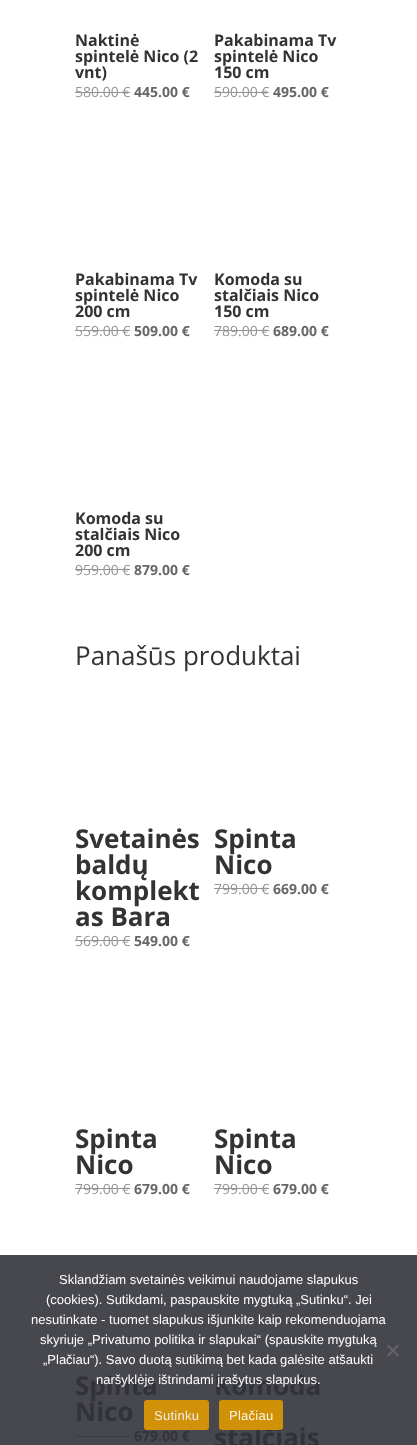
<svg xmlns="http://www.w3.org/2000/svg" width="417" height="1445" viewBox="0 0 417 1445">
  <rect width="100%" height="100%" fill="#fff"/>
  <path d="M0 1255h417v190H0z" fill="#47474e"/>
  <path d="M75 92h55v1H75z" fill="#949494"/>
  <path d="M214 92h55v1H214z" fill="#949494"/>
  <path d="M75 330h55v1H75z" fill="#949494"/>
  <path d="M214 330h55v1H214z" fill="#949494"/>
  <path d="M75 569h55v1H75z" fill="#949494"/>
  <path d="M75 940h55v1H75z" fill="#949494"/>
  <path d="M214 888h55v1H214z" fill="#949494"/>
  <path d="M75 1188h55v1H75z" fill="#949494"/>
  <path d="M214 1188h55v1H214z" fill="#949494"/>
  <path d="M75 1436h55v1H75z" fill="#3c3c43"/>
  <path d="M397.5 1344.5L399 1346L388.5 1356.5L387 1355Z" fill="#636367"/>
  <path d="M387 1346L388.5 1344.5L399 1355L397.5 1356.5Z" fill="#636367"/>
  <g font-family="Open Sans" font-size="16" font-weight="bold" fill="#333">
    <text x="75" y="46">Naktinė</text>
    <text x="75" y="62">spintelė Nico (2</text>
    <text x="75" y="78">vnt)</text>
  </g>
  <text x="75" y="97" font-family="Open Sans" font-size="14" fill="#949494">580.00 €</text>
  <text x="134" y="97" font-family="Open Sans" font-size="14" font-weight="bold" fill="#666">445.00 €</text>
  <g font-family="Open Sans" font-size="16" font-weight="bold" fill="#333">
    <text x="214" y="46">Pakabinama Tv</text>
    <text x="214" y="62">spintelė Nico</text>
    <text x="214" y="78">150 cm</text>
  </g>
  <text x="214" y="97" font-family="Open Sans" font-size="14" fill="#949494">590.00 €</text>
  <text x="273" y="97" font-family="Open Sans" font-size="14" font-weight="bold" fill="#666">495.00 €</text>
  <g font-family="Open Sans" font-size="16" font-weight="bold" fill="#333">
    <text x="75" y="285">Pakabinama Tv</text>
    <text x="75" y="301">spintelė Nico</text>
    <text x="75" y="317">200 cm</text>
  </g>
  <text x="75" y="336" font-family="Open Sans" font-size="14" fill="#949494">559.00 €</text>
  <text x="134" y="336" font-family="Open Sans" font-size="14" font-weight="bold" fill="#666">509.00 €</text>
  <g font-family="Open Sans" font-size="16" font-weight="bold" fill="#333">
    <text x="214" y="285">Komoda su</text>
    <text x="214" y="301">stalčiais Nico</text>
    <text x="214" y="317">150 cm</text>
  </g>
  <text x="214" y="336" font-family="Open Sans" font-size="14" fill="#949494">789.00 €</text>
  <text x="273" y="336" font-family="Open Sans" font-size="14" font-weight="bold" fill="#666">689.00 €</text>
  <g font-family="Open Sans" font-size="16" font-weight="bold" fill="#333">
    <text x="75" y="524">Komoda su</text>
    <text x="75" y="540">stalčiais Nico</text>
    <text x="75" y="556">200 cm</text>
  </g>
  <text x="75" y="575" font-family="Open Sans" font-size="14" fill="#949494">959.00 €</text>
  <text x="134" y="575" font-family="Open Sans" font-size="14" font-weight="bold" fill="#666">879.00 €</text>
  <text x="75" y="665" font-family="Open Sans" font-size="26" fill="#333">Panašūs produktai</text>
  <g font-family="Open Sans" font-size="26" font-weight="bold" fill="#333">
    <text x="75" y="848">Svetainės</text>
    <text x="75" y="874">baldų</text>
    <text x="75" y="900">komplekt</text>
    <text x="75" y="926">as Bara</text>
  </g>
  <text x="75" y="946" font-family="Open Sans" font-size="14" fill="#949494">569.00 €</text>
  <text x="134" y="946" font-family="Open Sans" font-size="14" font-weight="bold" fill="#666">549.00 €</text>
  <g font-family="Open Sans" font-size="26" font-weight="bold" fill="#333">
    <text x="214" y="848">Spinta</text>
    <text x="214" y="874">Nico</text>
  </g>
  <text x="214" y="894" font-family="Open Sans" font-size="14" fill="#949494">799.00 €</text>
  <text x="273" y="894" font-family="Open Sans" font-size="14" font-weight="bold" fill="#666">669.00 €</text>
  <g font-family="Open Sans" font-size="26" font-weight="bold" fill="#333">
    <text x="75" y="1148">Spinta</text>
    <text x="75" y="1174">Nico</text>
  </g>
  <text x="75" y="1194" font-family="Open Sans" font-size="14" fill="#949494">799.00 €</text>
  <text x="134" y="1194" font-family="Open Sans" font-size="14" font-weight="bold" fill="#666">679.00 €</text>
  <g font-family="Open Sans" font-size="26" font-weight="bold" fill="#333">
    <text x="214" y="1148">Spinta</text>
    <text x="214" y="1174">Nico</text>
  </g>
  <text x="214" y="1194" font-family="Open Sans" font-size="14" fill="#949494">799.00 €</text>
  <text x="273" y="1194" font-family="Open Sans" font-size="14" font-weight="bold" fill="#666">679.00 €</text>
  <g font-family="Open Sans" font-size="26" font-weight="bold" fill="#323239">
    <text x="75" y="1395">Spinta</text>
    <text x="75" y="1421">Nico</text>
  </g>
  <text x="134" y="1441" font-family="Open Sans" font-size="14" font-weight="bold" fill="#323239">679.00 €</text>
  <g font-family="Open Sans" font-size="26" font-weight="bold" fill="#323239">
    <text x="214" y="1395">Komoda</text>
    <text x="214" y="1447">stalčiais</text>
  </g>
  <g font-family="Liberation Sans" font-size="13" fill="#fff">
    <text x="59" y="1284">Sklandžiam svetainės veikimui naudojame slapukus</text>
    <text x="46" y="1304">(cookies). Sutikdami, paspauskite mygtuką „Sutinku“. Jei</text>
    <text x="31" y="1324">nesutinkate - tuomet slapukus išjunkite kaip rekomenduojama</text>
    <text x="40" y="1344">skyriuje „Privatumo politika ir slapukai“ (spauskite mygtuką</text>
    <text x="43" y="1364">„Plačiau“). Savo duotą sutikimą bet kada galėsite atšaukti</text>
    <text x="96" y="1384">naršyklėje ištrindami įrašytus slapukus.</text>
  </g>
  <rect x="144" y="1400" width="65" height="30" rx="3" fill="#d19108"/>
  <text x="154" y="1420" font-family="Liberation Sans" font-size="13" letter-spacing="0.25" fill="#ededed">Sutinku</text>
  <rect x="219" y="1400" width="64" height="30" rx="3" fill="#e09900e6"/>
  <text x="229" y="1420" font-family="Liberation Sans" font-size="13" letter-spacing="0.25" fill="#faf4e6">Plačiau</text>
</svg>
